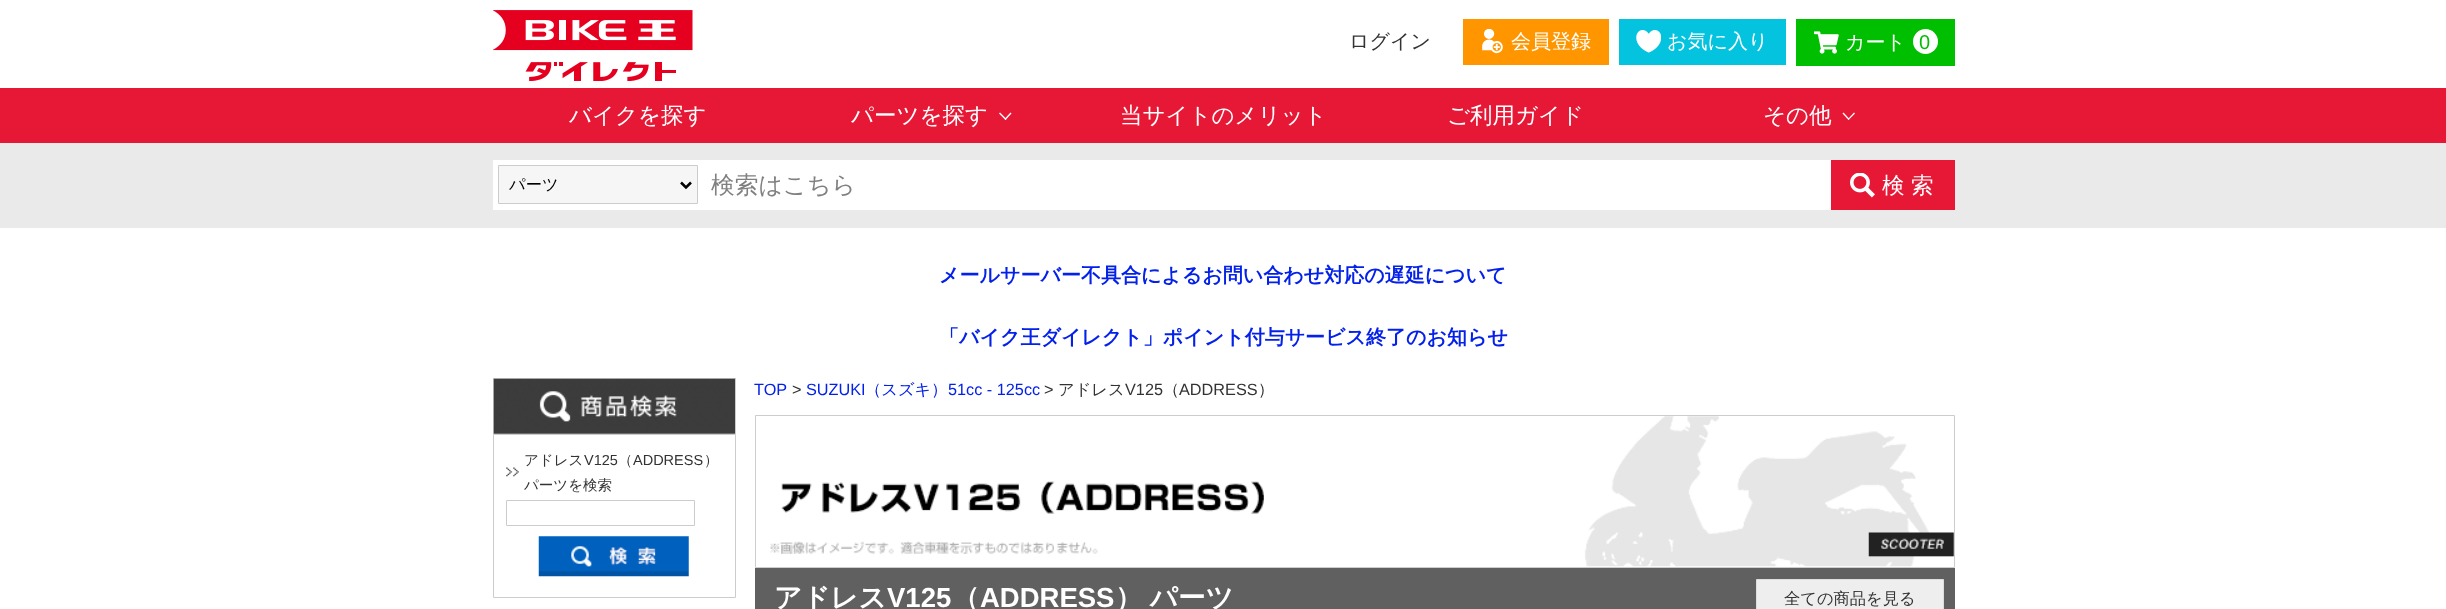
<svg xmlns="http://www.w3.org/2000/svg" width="2446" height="609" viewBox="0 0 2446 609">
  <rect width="100%" height="100%" fill="#fff"/>
  <image x="493" y="10" width="200" height="71" href="img/1.png"/>
  <path d="M1463 19h146v46H1463z" fill="#ff9600"/>
  <image x="1482" y="29" width="21" height="25" href="img/2.png"/>
  <path d="M1619 19h167v46H1619z" fill="#04c3df"/>
  <image x="1636" y="29" width="25" height="24" href="img/3.png"/>
  <path d="M1796 19h159v47H1796z" fill="#00be00"/>
  <image x="1814" y="31" width="25" height="23" href="img/4.png"/>
  <circle cx="1925.5" cy="41.5" r="12.5" fill="#fff"/>
  <path d="M0 88h2446v55H0z" fill="#e61835"/>
  <path d="M1010.5 112.5L1011.5 113.5L1005.5 120L1004.5 119Z" fill="#fff"/>
  <path d="M1000 112.5L1006.5 119L1005.5 120L999 113.5Z" fill="#fff"/>
  <path d="M1854 112.5L1855 113.5L1848.5 120L1848 119Z" fill="#fff"/>
  <path d="M1843.5 112.5L1849.5 119L1848.5 120L1842.5 113.5Z" fill="#fff"/>
  <path d="M0 143h2446v85H0z" fill="#eaeaea"/>
  <path d="M493 160h1338v50H493z" fill="#fff"/>
  <path d="M498.5 165.5h199v38H498.5z" fill="#f6f6f6" stroke="#ccc"/>
  <path d="M681 182.5L686 187.5L691 182.5" fill="none" stroke="#000" stroke-width="2.5"/>
  <path d="M1831 160h124v50H1831z" fill="#e61835"/>
  <image x="1850" y="173" width="25" height="25" href="img/5.png"/>
  <path d="M493 378h243v1H493z" fill="#ccc"/>
  <path d="M735 378h1v56H735z" fill="#ccc"/>
  <path d="M493 378h1v56H493z" fill="#ccc"/>
  <image x="493" y="378" width="242" height="56" href="img/6.png"/>
  <path d="M493.5 434.5h242v163H493.5z" fill="none" stroke="#ccc"/>
  <image x="506" y="467" width="13" height="10" href="img/7.png"/>
  <path d="M506.5 500.5h188v25H506.5z" fill="none" stroke="#ccc"/>
  <image x="538" y="536" width="151" height="41" href="img/8.png"/>
  <path d="M755.5 415.5h1199v152H755.5z" fill="none" stroke="#ccc"/>
  <image x="770" y="416" width="1184" height="151" href="img/9.png"/>
  <path d="M755 568h1200v41H755z" fill="#606060"/>
  <path d="M1756.5 579.5h187v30H1756.5z" fill="#eee" stroke="#ddd"/>
  <text x="1349" y="48" font-family="WenQuanYi Zen Hei" font-size="20" font-weight="500" fill="#333">ログイン</text>
  <g font-family="WenQuanYi Zen Hei" font-size="20" font-weight="500" fill="#fff">
    <text x="1511" y="48">会員登録</text>
    <text x="1667" y="48">お気に入り</text>
    <text x="1845" y="49">カート</text>
  </g>
  <text x="1919" y="49" font-family="Liberation Sans" font-size="20" fill="#00be00">0</text>
  <g font-family="WenQuanYi Zen Hei" font-size="22.5" font-weight="500" fill="#fff">
    <text x="569" y="123">バイクを探す</text>
    <text x="851" y="123">パーツを探す</text>
    <text x="1120" y="123">当サイトのメリット</text>
    <text x="1447" y="123">ご利用ガイド</text>
    <text x="1763" y="123">その他</text>
  </g>
  <text x="509" y="190" font-family="WenQuanYi Zen Hei" font-size="16.25" font-weight="500" fill="#000">パーツ</text>
  <text x="711" y="193" font-family="WenQuanYi Zen Hei" font-size="23.75" font-weight="500" fill="#808080">検索はこちら</text>
  <g font-family="WenQuanYi Zen Hei" font-size="22.5" font-weight="500" fill="#fff">
    <text x="1882" y="193">検</text>
    <text x="1911" y="193">索</text>
  </g>
  <g font-family="WenQuanYi Zen Hei" font-size="20" font-weight="bold" fill="#0421ea">
    <text x="939" y="282">メールサーバー不具合によるお問い合わせ対応の遅延について</text>
    <text x="939" y="344">「バイク王ダイレクト」ポイント付与サービス終了のお知らせ</text>
  </g>
  <text x="524" y="465" font-family="WenQuanYi Zen Hei" font-size="14.5" font-weight="500" fill="#333">アドレス</text>
  <text x="584" y="465" font-family="Liberation Sans" font-size="14.5" fill="#333">V125</text>
  <text x="618" y="465" font-family="WenQuanYi Zen Hei" font-size="14.5" font-weight="500" fill="#333">（</text>
  <text x="633" y="465" font-family="Liberation Sans" font-size="14.5" fill="#333">ADDRESS</text>
  <g font-family="WenQuanYi Zen Hei" font-size="14.5" font-weight="500" fill="#333">
    <text x="704" y="465">）</text>
    <text x="524" y="490">パーツを検索</text>
  </g>
  <text x="754" y="395" font-family="Liberation Sans" font-size="16.25" fill="#0421ea">TOP</text>
  <text x="792" y="395" font-family="Liberation Sans" font-size="16.25" fill="#333">&gt;</text>
  <text x="806" y="395" font-family="Liberation Sans" font-size="16.25" fill="#0421ea">SUZUKI</text>
  <text x="865" y="395" font-family="WenQuanYi Zen Hei" font-size="16.25" font-weight="500" fill="#0421ea">（スズキ）</text>
  <text x="948" y="395" font-family="Liberation Sans" font-size="16.25" fill="#0421ea">51cc - 125cc</text>
  <text x="1044" y="395" font-family="Liberation Sans" font-size="16.25" fill="#333">&gt;</text>
  <text x="1058" y="395" font-family="WenQuanYi Zen Hei" font-size="16.25" font-weight="500" fill="#333">アドレス</text>
  <text x="1125" y="395" font-family="Liberation Sans" font-size="16.25" fill="#333">V125</text>
  <text x="1163" y="395" font-family="WenQuanYi Zen Hei" font-size="16.25" font-weight="500" fill="#333">（</text>
  <text x="1179" y="395" font-family="Liberation Sans" font-size="16.25" fill="#333">ADDRESS</text>
  <text x="1258" y="395" font-family="WenQuanYi Zen Hei" font-size="16.25" font-weight="500" fill="#333">）</text>
  <text x="774" y="607" font-family="WenQuanYi Zen Hei" font-size="27.5" font-weight="bold" fill="#fff">アドレス</text>
  <text x="887" y="607" font-family="Liberation Sans" font-size="27.5" font-weight="bold" fill="#fff">V125</text>
  <text x="952" y="607" font-family="WenQuanYi Zen Hei" font-size="27.5" font-weight="bold" fill="#fff">（</text>
  <text x="980" y="607" font-family="Liberation Sans" font-size="27.5" font-weight="bold" fill="#fff">ADDRESS</text>
  <text x="1115" y="607" word-spacing="-1" font-family="WenQuanYi Zen Hei" font-size="27.5" font-weight="bold" fill="#fff">） パーツ</text>
  <text x="1784" y="604" font-family="WenQuanYi Zen Hei" font-size="16.25" font-weight="500" fill="#333">全ての商品を見る</text>
</svg>
